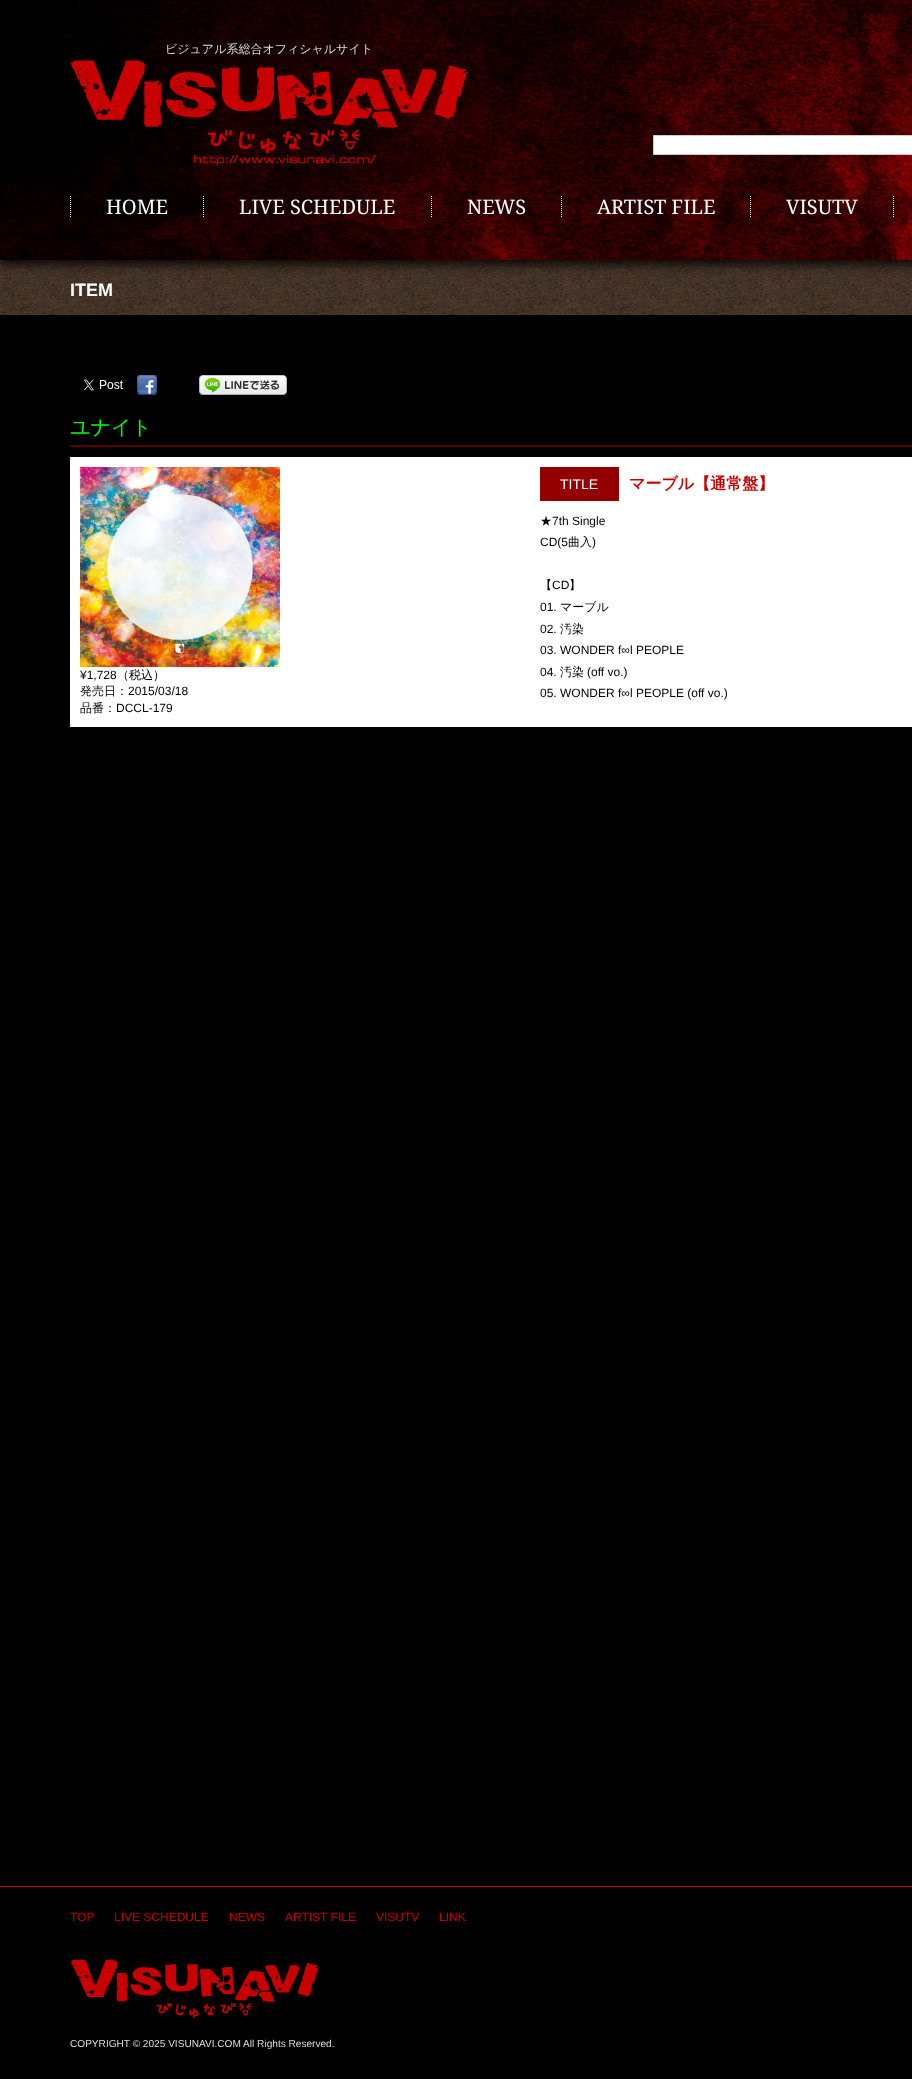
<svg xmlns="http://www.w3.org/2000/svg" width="912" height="2079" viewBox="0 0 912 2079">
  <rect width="100%" height="100%" fill="#000"/>
  <image x="0" y="260" width="912" height="55" href="img/3.png"/>
  <path d="M0 5h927v260H0z" fill="#000000cc" filter="blur(5px)"/>
  <image x="0" y="0" width="912" height="260" href="img/1.png"/>
  <image x="70" y="60" width="397" height="106" href="img/2.png"/>
  <path d="M653.5 135.5h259v19H653.5z" fill="#fff" stroke="#ccc"/>
  <path d="M70.5 196V218" fill="none" stroke="#fff" stroke-dasharray="1 1"/>
  <path d="M203.5 196V218" fill="none" stroke="#fff" stroke-dasharray="1 1"/>
  <path d="M431.5 196V218" fill="none" stroke="#fff" stroke-dasharray="1 1"/>
  <path d="M561.5 196V218" fill="none" stroke="#fff" stroke-dasharray="1 1"/>
  <path d="M750.5 196V218" fill="none" stroke="#fff" stroke-dasharray="1 1"/>
  <path d="M893.5 196V218" fill="none" stroke="#fff" stroke-dasharray="1 1"/>
  <image x="83" y="379" width="40" height="12" href="img/4.png"/>
  <image x="137" y="375" width="20" height="20" href="img/5.png"/>
  <image x="199" y="375" width="88" height="20" href="img/6.png"/>
  <path d="M70 445h842v2H70z" fill="#550203"/>
  <path d="M70 457h842v270H70z" fill="#fff"/>
  <image x="80" y="467" width="200" height="200" href="img/7.png"/>
  <path d="M540 467h79v34H540z" fill="#930000"/>
  <path d="M0 1886h912v1H0z" fill="#c80000"/>
  <image x="70" y="1959" width="249" height="59" href="img/8.png"/>
  <text x="165" y="53" font-family="WenQuanYi Zen Hei" font-size="12" font-weight="500" fill="#ddd">ビジュアル系総合オフィシャルサイト</text>
  <g font-family="Droid Serif" font-size="20" fill="#fff">
    <text x="106" y="214">HOME</text>
    <text x="239" y="214">LIVE SCHEDULE</text>
    <text x="467" y="214">NEWS</text>
    <text x="597" y="214">ARTIST FILE</text>
    <text x="786" y="214">VISUTV</text>
  </g>
  <text x="70" y="296" font-family="Liberation Sans" font-size="18" font-weight="bold" fill="#fff">ITEM</text>
  <text x="70" y="434" font-family="WenQuanYi Zen Hei" font-size="20" font-weight="500" fill="#0f0">ユナイト</text>
  <text x="80" y="679" font-family="Liberation Sans" font-size="12" fill="#000">¥1,728</text>
  <g font-family="WenQuanYi Zen Hei" font-size="12" font-weight="500" fill="#000">
    <text x="117" y="679">（税込）</text>
    <text x="80" y="695">発売日：</text>
  </g>
  <text x="128" y="695" font-family="Liberation Sans" font-size="12" fill="#000">2015/03/18</text>
  <text x="80" y="712" font-family="WenQuanYi Zen Hei" font-size="12" font-weight="500" fill="#000">品番：</text>
  <text x="116" y="712" font-family="Liberation Sans" font-size="12" fill="#000">DCCL-179</text>
  <text x="560" y="489" font-family="Liberation Sans" font-size="14" fill="#fff">TITLE</text>
  <text x="629" y="489" font-family="WenQuanYi Zen Hei" font-size="16" font-weight="bold" fill="#c80000">マーブル【通常盤】</text>
  <text x="540" y="525" font-family="WenQuanYi Zen Hei" font-size="12" font-weight="500" fill="#000">★</text>
  <g font-family="Liberation Sans" font-size="12" fill="#000">
    <text x="552" y="525">7th Single</text>
    <text x="540" y="546">CD(5</text>
  </g>
  <text x="568" y="546" font-family="WenQuanYi Zen Hei" font-size="12" font-weight="500" fill="#000">曲入</text>
  <text x="592" y="546" font-family="Liberation Sans" font-size="12" fill="#000">)</text>
  <text x="540" y="589" font-family="WenQuanYi Zen Hei" font-size="12" font-weight="500" fill="#000">【</text>
  <text x="552" y="589" font-family="Liberation Sans" font-size="12" fill="#000">CD</text>
  <text x="569" y="589" font-family="WenQuanYi Zen Hei" font-size="12" font-weight="500" fill="#000">】</text>
  <text x="540" y="611" font-family="Liberation Sans" font-size="12" fill="#000">01.</text>
  <text x="560" y="611" font-family="WenQuanYi Zen Hei" font-size="12" font-weight="500" fill="#000">マーブル</text>
  <text x="540" y="633" font-family="Liberation Sans" font-size="12" fill="#000">02.</text>
  <text x="560" y="633" font-family="WenQuanYi Zen Hei" font-size="12" font-weight="500" fill="#000">汚染</text>
  <g font-family="Liberation Sans" font-size="12" fill="#000">
    <text x="540" y="654">03. WONDER f∞l PEOPLE</text>
    <text x="540" y="676">04.</text>
  </g>
  <text x="560" y="676" font-family="WenQuanYi Zen Hei" font-size="12" font-weight="500" fill="#000">汚染</text>
  <g font-family="Liberation Sans" font-size="12" fill="#000">
    <text x="587" y="676">(off vo.)</text>
    <text x="540" y="697">05. WONDER f∞l PEOPLE (off vo.)</text>
  </g>
  <g font-family="Liberation Sans" font-size="12" fill="#c80000">
    <text x="70" y="1921">TOP</text>
    <text x="114" y="1921">LIVE SCHEDULE</text>
    <text x="229" y="1921">NEWS</text>
    <text x="285" y="1921">ARTIST FILE</text>
    <text x="376" y="1921">VISUTV</text>
    <text x="439" y="1921">LINK</text>
  </g>
  <text x="70" y="2047" font-family="Liberation Sans" font-size="10.1" fill="#ddd">COPYRIGHT © 2025 VISUNAVI.COM All Rights Reserved.</text>
</svg>
